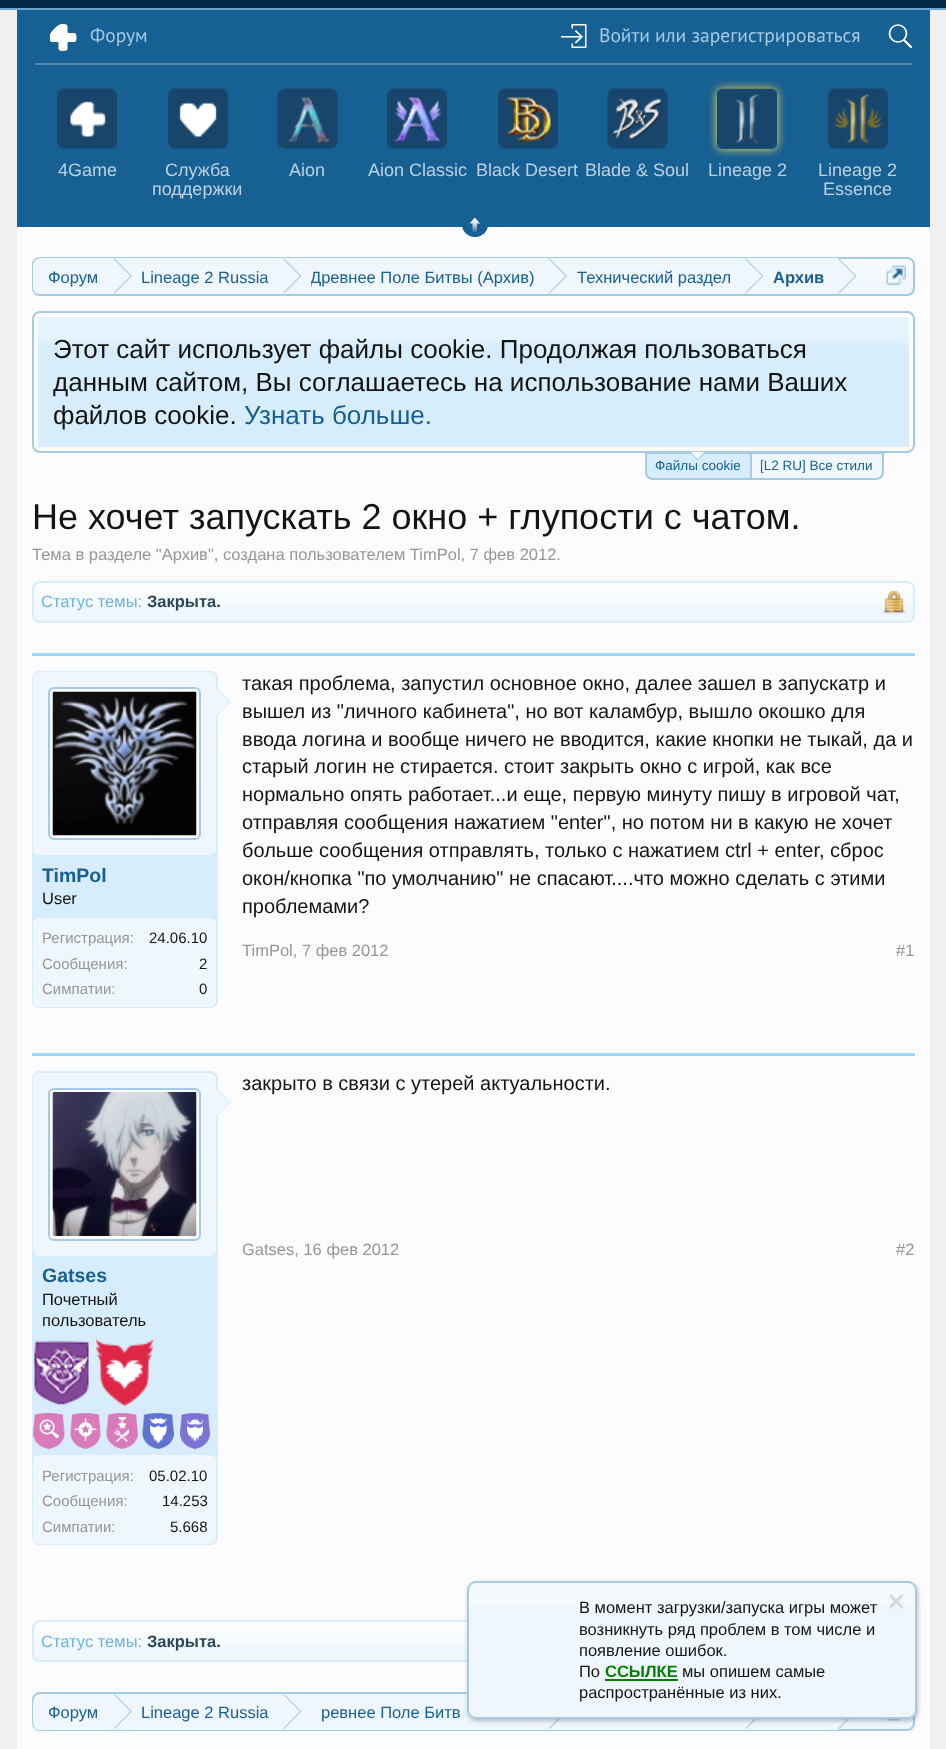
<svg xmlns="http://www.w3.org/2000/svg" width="946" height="1749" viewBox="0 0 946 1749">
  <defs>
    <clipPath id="clip1"><path d="M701 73H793V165H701ZM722 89H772C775 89 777 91 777 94V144C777 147 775 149 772 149H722C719 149 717 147 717 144V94C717 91 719 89 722 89Z" clip-rule="evenodd"/></clipPath>
    <clipPath id="clip2"><rect x="33" y="258" width="881" height="36" rx="6"/></clipPath>
    <clipPath id="clip3"><rect x="33" y="1694" width="881" height="36" rx="6"/></clipPath>
    <clipPath id="clip4"><path d="M311 258h223v36H311z"/></clipPath>
    <clipPath id="clip5"><path d="M63 452h821v28H63z"/></clipPath>
  </defs>
  <rect width="100%" height="100%" fill="#f0f0f0"/>
  <path d="M0 0h946v8H0z" fill="#032a46"/>
  <path d="M0 8h946v2H0z" fill="#65a5d1"/>
  <path d="M17 10h913v217H17z" fill="#176093"/>
  <path d="M35 63h877v2H35z" fill="#4c84ac"/>
  <image x="50" y="24" width="27" height="27" href="img/1.png"/>
  <image x="561" y="24" width="26" height="24" href="img/2.png"/>
  <circle cx="898" cy="33.5" r="8.5" fill="none" stroke="#fff" stroke-width="1.7"/>
  <path d="M904 40L911 47" fill="none" stroke="#fff" stroke-width="2.2" stroke-linecap="round"/>
  <path d="M17 227h913v1522H17z" fill="#fcfcff"/>
  <rect x="462" y="212" width="26" height="25" rx="12.5" fill="#176093"/>
  <image x="470" y="218" width="10" height="15" href="img/3.png"/>
  <image x="57" y="88" width="60" height="61" href="img/4.png"/>
  <image x="168" y="88" width="60" height="61" href="img/5.png"/>
  <image x="277" y="88" width="61" height="61" href="img/6.png"/>
  <image x="387" y="88" width="60" height="61" href="img/7.png"/>
  <image x="498" y="88" width="60" height="61" href="img/8.png"/>
  <image x="607" y="88" width="61" height="61" href="img/9.png"/>
  <g clip-path="url(#clip1)">
    <rect x="717" y="89" width="60" height="60" rx="5" fill="#fde04d" filter="blur(5px)"/>
  </g>
  <image x="717" y="88" width="60" height="61" href="img/10.png"/>
  <image x="828" y="88" width="60" height="61" href="img/11.png"/>
  <rect x="32" y="257" width="883" height="39" rx="8" fill="#f0f7fc"/>
  <image x="32" y="258" width="883" height="23" href="img/12.png"/>
  <rect x="33" y="258" width="881" height="37" rx="7" fill="none" stroke="#a5cae4" stroke-width="2"/>
  <g clip-path="url(#clip2)">
    <path d="M41 258H114V296H41C36.5 296 33 292.5 33 288V266C33 261.5 36.5 258 41 258Z" fill="#f0f7fc"/>
  </g>
  <path d="M114 258h725v23H114z" fill="#f0f7fc"/>
  <path d="M114 294V258L132 276Z" fill="#a5cae4"/>
  <path d="M112.5 294V258L130.5 276Z" fill="#f0f7fc"/>
  <path d="M283.5 294V258L301.5 276Z" fill="#a5cae4"/>
  <path d="M282 294V258L300 276Z" fill="#f0f7fc"/>
  <path d="M549 294V258L567 276Z" fill="#a5cae4"/>
  <path d="M547.5 294V258L565.5 276Z" fill="#f0f7fc"/>
  <path d="M745.5 294V258L763.5 276Z" fill="#a5cae4"/>
  <path d="M744 294V258L762 276Z" fill="#f0f7fc"/>
  <path d="M838.5 294V258L856.5 276Z" fill="#a5cae4"/>
  <path d="M837 294V258L855 276Z" fill="#f0f7fc"/>
  <image x="886" y="265" width="20" height="20" href="img/13.png"/>
  <rect x="33" y="312" width="881" height="140" rx="7" fill="none" stroke="#a5cae4" stroke-width="2"/>
  <path d="M38 317h871v130H38z" fill="#d7edfc"/>
  <image x="38" y="317" width="870" height="29" href="img/15.png"/>
  <image x="907" y="317" width="2" height="29" href="img/14.png"/>
  <path d="M646 453H751V479H653C649 479 646 476 646 472Z" fill="#d7edfc" stroke="#a5cae4" stroke-width="2"/>
  <path d="M751 453H883V472C883 476 880 479 876 479H751Z" fill="#f0f7fc" stroke="#a5cae4" stroke-width="2"/>
  <rect x="32" y="581" width="883" height="42" rx="8" fill="#f0f7fc"/>
  <image x="32" y="582" width="883" height="24" href="img/16.png"/>
  <rect x="33" y="582" width="881" height="40" rx="7" fill="none" stroke="#d7edfc" stroke-width="2"/>
  <image x="882" y="590" width="24" height="24" href="img/17.png"/>
  <path d="M32 653h883v3H32z" fill="#9cd7ff"/>
  <rect x="32" y="671" width="186" height="337" rx="8" fill="#d7edfc"/>
  <image x="32" y="1000" width="185" height="7" href="img/18.png"/>
  <rect x="33" y="672" width="184" height="335" rx="7" fill="none" stroke="#d7edfc" stroke-width="2"/>
  <rect x="33" y="672" width="183" height="183" rx="6" fill="#f0f7fc"/>
  <rect x="49" y="688" width="151" height="151" rx="5" fill="#fcfcff" stroke="#a5cae4" stroke-width="2"/>
  <image x="52" y="691" width="145" height="145" href="img/19.png"/>
  <path d="M216 717V687L231 702Z" fill="#d7edfc"/>
  <path d="M214.5 717V687L229.5 702Z" fill="#f0f7fc"/>
  <rect x="33" y="918" width="183" height="89" rx="6" fill="#f0f7fc"/>
  <path d="M32 1053h883v3H32z" fill="#9cd7ff"/>
  <rect x="32" y="1071" width="186" height="474" rx="8" fill="#d7edfc"/>
  <image x="32" y="1537" width="185" height="7" href="img/18.png"/>
  <rect x="33" y="1072" width="184" height="472" rx="7" fill="none" stroke="#d7edfc" stroke-width="2"/>
  <rect x="33" y="1073" width="183" height="183" rx="6" fill="#f0f7fc"/>
  <rect x="49" y="1089" width="151" height="151" rx="5" fill="#fcfcff" stroke="#a5cae4" stroke-width="2"/>
  <image x="52" y="1092" width="145" height="144" href="img/20.png"/>
  <path d="M216 1117.5V1087.5L231 1102.5Z" fill="#d7edfc"/>
  <path d="M214.5 1117.5V1087.5L229.5 1102.5Z" fill="#f0f7fc"/>
  <image x="34" y="1340" width="55" height="66" href="img/21.png"/>
  <image x="96" y="1339" width="57" height="67" href="img/22.png"/>
  <image x="33" y="1413" width="32" height="36" href="img/23.png"/>
  <image x="70" y="1413" width="31" height="36" href="img/24.png"/>
  <image x="106" y="1413" width="32" height="36" href="img/25.png"/>
  <image x="142" y="1413" width="32" height="36" href="img/26.png"/>
  <image x="180" y="1413" width="30" height="36" href="img/27.png"/>
  <rect x="33" y="1455" width="183" height="89" rx="6" fill="#f0f7fc"/>
  <rect x="32" y="1620" width="883" height="42" rx="8" fill="#f0f7fc"/>
  <image x="32" y="1621" width="435" height="25" href="img/28.png"/>
  <rect x="33" y="1621" width="881" height="40" rx="7" fill="none" stroke="#d7edfc" stroke-width="2"/>
  <rect x="32" y="1692" width="883" height="39" rx="8" fill="#f0f7fc"/>
  <image x="32" y="1694" width="9" height="6" href="img/31.png"/>
  <rect x="33" y="1693" width="881" height="37" rx="7" fill="none" stroke="#a5cae4" stroke-width="2"/>
  <path d="M114 1729h725v1H114z" fill="#f0f7fc"/>
  <path d="M549 1729.5V1693.5L567 1711.5Z" fill="#a5cae4"/>
  <path d="M547.5 1729.5V1693.5L565.5 1711.5Z" fill="#f0f7fc"/>
  <path d="M745.5 1729.5V1693.5L763.5 1711.5Z" fill="#a5cae4"/>
  <path d="M744 1729.5V1693.5L762 1711.5Z" fill="#f0f7fc"/>
  <path d="M838.5 1729.5V1693.5L856.5 1711.5Z" fill="#a5cae4"/>
  <path d="M837 1729.5V1693.5L855 1711.5Z" fill="#f0f7fc"/>
  <image x="886" y="1719" width="16" height="2" href="img/32.png"/>
  <rect x="468" y="1583" width="450" height="138" rx="9" fill="#00000040" filter="blur(2px)"/>
  <rect x="467" y="1581" width="450" height="138" rx="9" fill="#f0f7fc"/>
  <image x="467" y="1583" width="449" height="23" href="img/29.png"/>
  <rect x="468" y="1582" width="448" height="136" rx="8" fill="none" stroke="#a5cae4" stroke-width="2"/>
  <path d="M605 1679h73v2H605z" fill="#008000"/>
  <image x="888" y="1594" width="16" height="15" href="img/30.png"/>
  <g clip-path="url(#clip3)">
    <path d="M41 1694H114V1731H41C36.5 1731 33 1727.5 33 1723V1702C33 1697.5 36.5 1694 41 1694Z" fill="#f0f7fc"/>
  </g>
  <path d="M114 1729.5V1693.5L132 1711.5Z" fill="#a5cae4"/>
  <path d="M112.5 1729.5V1693.5L130.5 1711.5Z" fill="#f0f7fc"/>
  <path d="M283.5 1729.5V1693.5L301.5 1711.5Z" fill="#a5cae4"/>
  <path d="M282 1729.5V1693.5L300 1711.5Z" fill="#f0f7fc"/>
  <g font-family="PT Sans" font-size="19.5" fill="#a5cae4">
    <text x="90" y="42">Форум</text>
    <text x="599" y="42">Войти или зарегистрироваться</text>
  </g>
  <g font-family="Liberation Sans" font-size="18" fill="#bcd1e0">
    <text x="58" y="176">4Game</text>
    <text x="165" y="176">Служба</text>
    <text x="152" y="195">поддержки</text>
    <text x="289" y="176">Aion</text>
    <text x="368" y="176">Aion Classic</text>
    <text x="476" y="176">Black Desert</text>
    <text x="585" y="176">Blade &amp; Soul</text>
    <text x="708" y="176">Lineage 2</text>
    <text x="818" y="176">Lineage 2</text>
    <text x="823" y="195">Essence</text>
  </g>
  <g font-family="Liberation Sans" font-size="16.5" fill="#176093">
    <text x="48" y="283">Форум</text>
    <text x="141" y="283">Lineage 2 Russia</text>
  </g>
  <g clip-path="url(#clip4)">
    <text x="310" y="283" font-family="Liberation Sans" font-size="16.5" fill="#176093">Древнее Поле Битвы (Архив)</text>
  </g>
  <text x="577" y="283" font-family="Liberation Sans" font-size="16.5" fill="#176093">Технический раздел</text>
  <text x="773" y="283" font-family="Liberation Sans" font-size="16.5" font-weight="bold" fill="#176093">Архив</text>
  <g font-family="Liberation Sans" font-size="26" fill="#141414">
    <text x="53" y="358">Этот сайт использует файлы cookie. Продолжая пользоваться</text>
    <text x="53" y="391">данным сайтом, Вы соглашаетесь на использование нами Ваших</text>
    <text x="53" y="424">файлов cookie.</text>
  </g>
  <text x="244" y="424" font-family="Liberation Sans" font-size="26" fill="#176093">Узнать больше.</text>
  <text x="655" y="470" font-family="Liberation Sans" font-size="13.5" fill="#176093">Файлы cookie</text>
  <path d="M690 453H705L697.5 460.5Z" fill="#a5cae4"/>
  <g clip-path="url(#clip5)">
    <path d="M690 451.5H705L697.5 459Z" fill="#fcfcff"/>
  </g>
  <text x="760" y="470" font-family="Liberation Sans" font-size="13.5" fill="#176093">[L2 RU] Все стили</text>
  <text x="32" y="529" font-family="Liberation Sans" font-size="36" fill="#141414">Не хочет запускать 2 окно + глупости с чатом.</text>
  <text x="32" y="560" font-family="Liberation Sans" font-size="16.5" fill="#969696">Тема в разделе "Архив", создана пользователем TimPol, 7 фев 2012.</text>
  <text x="41" y="607" font-family="Liberation Sans" font-size="16.5" fill="#6cb2e4">Статус темы:</text>
  <text x="147" y="607" font-family="Liberation Sans" font-size="16.5" font-weight="bold" fill="#2b485c">Закрыта.</text>
  <text x="42" y="882" font-family="Liberation Sans" font-size="19.5" font-weight="bold" fill="#176093">TimPol</text>
  <text x="42" y="904" font-family="Liberation Sans" font-size="16.5" fill="#141414">User</text>
  <text x="42" y="943" font-family="Liberation Sans" font-size="15" fill="#969696">Регистрация:</text>
  <text x="149" y="943" font-family="Liberation Sans" font-size="15" fill="#141414">24.06.10</text>
  <text x="42" y="969" font-family="Liberation Sans" font-size="15" fill="#969696">Сообщения:</text>
  <text x="199" y="969" font-family="Liberation Sans" font-size="15" fill="#141414">2</text>
  <text x="42" y="994" font-family="Liberation Sans" font-size="15" fill="#969696">Симпатии:</text>
  <text x="199" y="994" font-family="Liberation Sans" font-size="15" fill="#141414">0</text>
  <g font-family="Liberation Sans" font-size="20" fill="#141414">
    <text x="242" y="690">такая проблема, запустил основное окно, далее зашел в запускатр и</text>
    <text x="242" y="718">вышел из "личного кабинета", но вот каламбур, вышло окошко для</text>
    <text x="242" y="746">ввода логина и вообще ничего не вводится, какие кнопки не тыкай, да и</text>
    <text x="242" y="773">старый логин не стирается. стоит закрыть окно с игрой, как все</text>
    <text x="242" y="801">нормально опять работает...и еще, первую минуту пишу в игровой чат,</text>
    <text x="242" y="829">отправляя сообщения нажатием "enter", но потом ни в какую не хочет</text>
    <text x="242" y="857">больше сообщения отправлять, только с нажатием ctrl + enter, сброс</text>
    <text x="242" y="885">окон/кнопка "по умолчанию" не спасают....что можно сделать с этими</text>
    <text x="242" y="913">проблемами?</text>
  </g>
  <g font-family="Liberation Sans" font-size="16.5" fill="#969696">
    <text x="242" y="956">TimPol, 7 фев 2012</text>
    <text x="896" y="956">#1</text>
  </g>
  <text x="242" y="1090" font-family="Liberation Sans" font-size="20" fill="#141414">закрыто в связи с утерей актуальности.</text>
  <g font-family="Liberation Sans" font-size="16.5" fill="#969696">
    <text x="242" y="1255">Gatses, 16 фев 2012</text>
    <text x="896" y="1255">#2</text>
  </g>
  <text x="42" y="1282" font-family="Liberation Sans" font-size="19.5" font-weight="bold" fill="#176093">Gatses</text>
  <g font-family="Liberation Sans" font-size="16.5" fill="#141414">
    <text x="42" y="1305">Почетный</text>
    <text x="42" y="1326">пользователь</text>
  </g>
  <text x="42" y="1481" font-family="Liberation Sans" font-size="15" fill="#969696">Регистрация:</text>
  <text x="149" y="1481" font-family="Liberation Sans" font-size="15" fill="#141414">05.02.10</text>
  <text x="42" y="1506" font-family="Liberation Sans" font-size="15" fill="#969696">Сообщения:</text>
  <text x="162" y="1506" font-family="Liberation Sans" font-size="15" fill="#141414">14.253</text>
  <text x="42" y="1532" font-family="Liberation Sans" font-size="15" fill="#969696">Симпатии:</text>
  <text x="170" y="1532" font-family="Liberation Sans" font-size="15" fill="#141414">5.668</text>
  <text x="41" y="1647" font-family="Liberation Sans" font-size="16.5" fill="#6cb2e4">Статус темы:</text>
  <text x="147" y="1647" font-family="Liberation Sans" font-size="16.5" font-weight="bold" fill="#2b485c">Закрыта.</text>
  <g font-family="Liberation Sans" font-size="16.5" fill="#141414">
    <text x="579" y="1613">В момент загрузки/запуска игры может</text>
    <text x="579" y="1635">возникнуть ряд проблем в том числе и</text>
    <text x="579" y="1656">появление ошибок.</text>
    <text x="579" y="1677">По</text>
  </g>
  <text x="605" y="1677" font-family="Liberation Sans" font-size="16.5" font-weight="bold" fill="#008000">ССЫЛКЕ</text>
  <g font-family="Liberation Sans" font-size="16.5" fill="#141414">
    <text x="682" y="1677">мы опишем самые</text>
    <text x="579" y="1698">распространённые из них.</text>
  </g>
  <g font-family="Liberation Sans" font-size="16.5" fill="#176093">
    <text x="48" y="1718">Форум</text>
    <text x="141" y="1718">Lineage 2 Russia</text>
    <text x="321" y="1718">ревнее Поле Битв</text>
  </g>
</svg>
